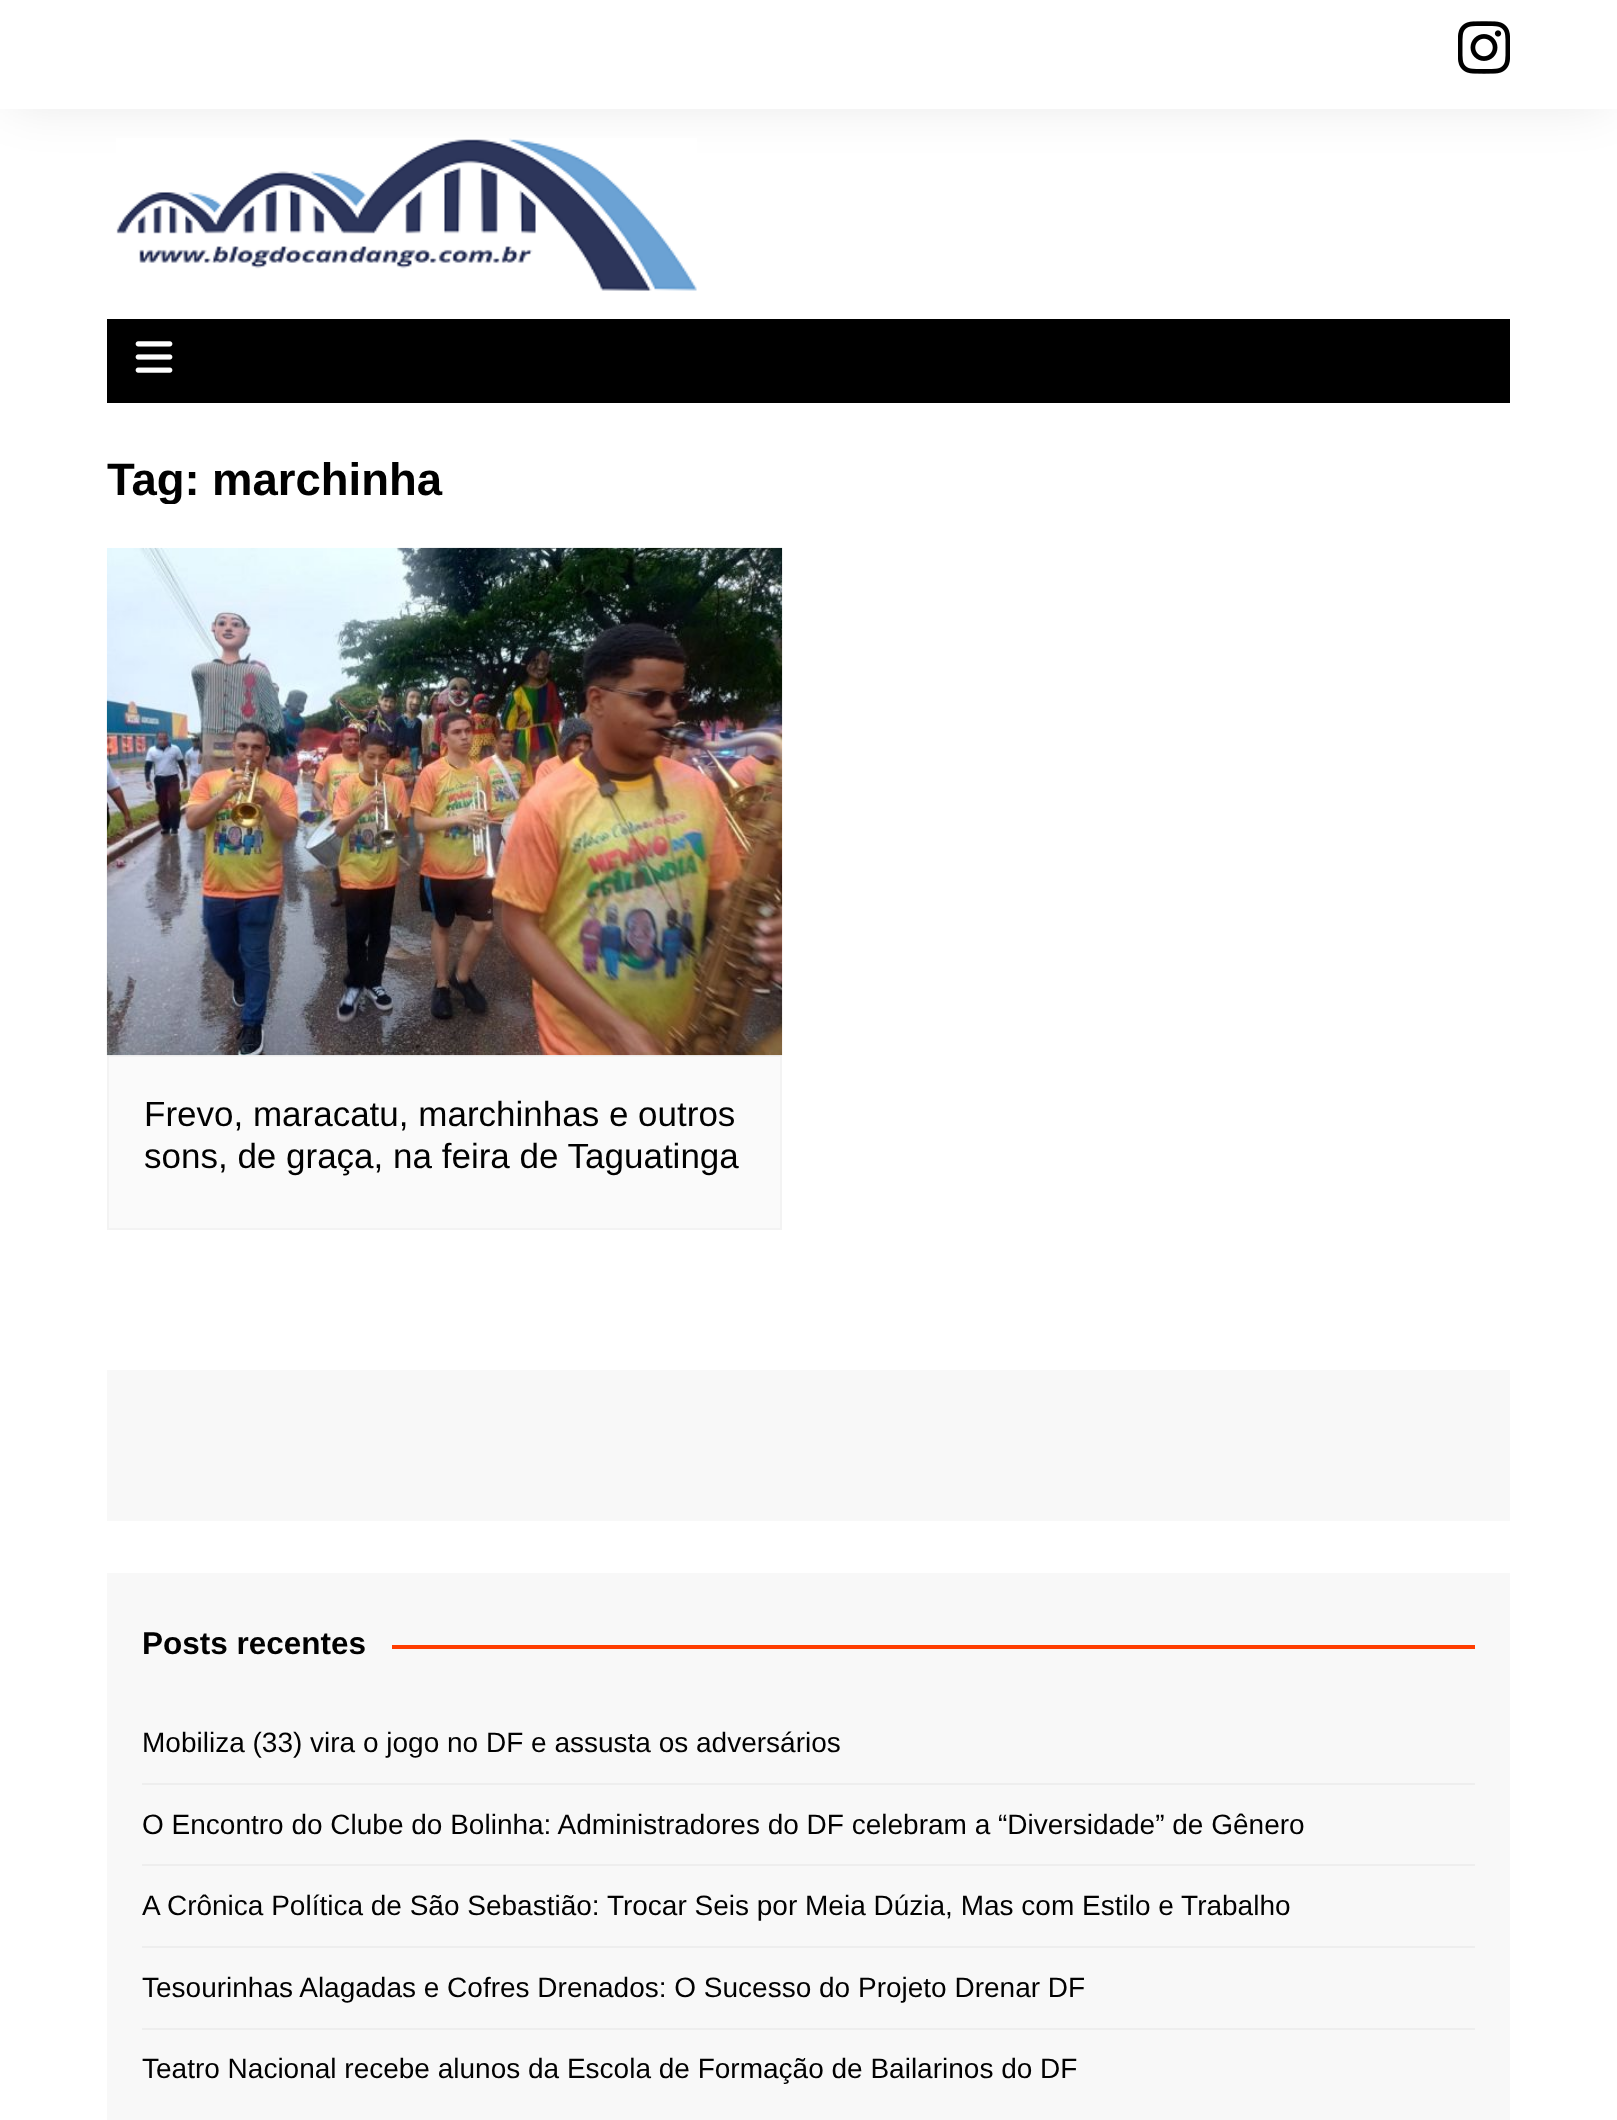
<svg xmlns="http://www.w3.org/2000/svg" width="1617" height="2120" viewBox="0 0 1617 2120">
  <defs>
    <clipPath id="clip1"><path d="M107 455h1403v49H107z"/></clipPath>
  </defs>
  <rect width="100%" height="100%" fill="#fff"/>
  <path d="M9 12h1599v91H9z" fill="#0000001a" filter="blur(26px)"/>
  <path d="M0 0h1617v109H0z" fill="#fff"/>
  <image x="1458" y="21" width="52" height="53" href="img/1.png"/>
  <image x="116" y="138" width="581" height="153" href="img/2.png"/>
  <path d="M107 319h1403v84H107z" fill="#000"/>
  <image x="135" y="341" width="38" height="32" href="img/3.png"/>
  <path d="M108 1056h673v173H108z" fill="#fafafa" stroke="#f3f3f3" stroke-width="2"/>
  <image x="106" y="547" width="677" height="509" href="img/4.png"/>
  <path d="M107 1370h1403v151H107z" fill="#f8f8f8"/>
  <path d="M107 1573h1403v547H107z" fill="#f8f8f8"/>
  <path d="M392 1645h1083v4H392z" fill="#ff3d00"/>
  <path d="M142 1783h1333v2H142z" fill="#eee"/>
  <path d="M142 1864h1333v2H142z" fill="#eee"/>
  <path d="M142 1946h1333v2H142z" fill="#eee"/>
  <path d="M142 2028h1333v2H142z" fill="#eee"/>
  <g clip-path="url(#clip1)">
    <text x="107" y="495" font-family="Liberation Sans" font-size="45.5" font-weight="bold" fill="#010101">Tag:</text>
  </g>
  <text x="212" y="495" font-family="Liberation Sans" font-size="45.5" font-weight="bold" fill="#010101">marchinha</text>
  <g font-family="Liberation Sans" font-size="35" fill="#010101">
    <text x="144" y="1126">Frevo, maracatu, marchinhas e outros</text>
    <text x="144" y="1168">sons, de graça, na feira de Taguatinga</text>
  </g>
  <text x="142" y="1654" font-family="Liberation Sans" font-size="31.5" font-weight="bold" fill="#010101">Posts recentes</text>
  <g font-family="Liberation Sans" font-size="28" fill="#010101">
    <text x="142" y="1752">Mobiliza (33) vira o jogo no DF e assusta os adversários</text>
    <text x="142" y="1834">O Encontro do Clube do Bolinha: Administradores do DF celebram a “Diversidade” de Gênero</text>
    <text x="142" y="1915">A Crônica Política de São Sebastião: Trocar Seis por Meia Dúzia, Mas com Estilo e Trabalho</text>
    <text x="142" y="1997">Tesourinhas Alagadas e Cofres Drenados: O Sucesso do Projeto Drenar DF</text>
    <text x="142" y="2078">Teatro Nacional recebe alunos da Escola de Formação de Bailarinos do DF</text>
  </g>
</svg>
